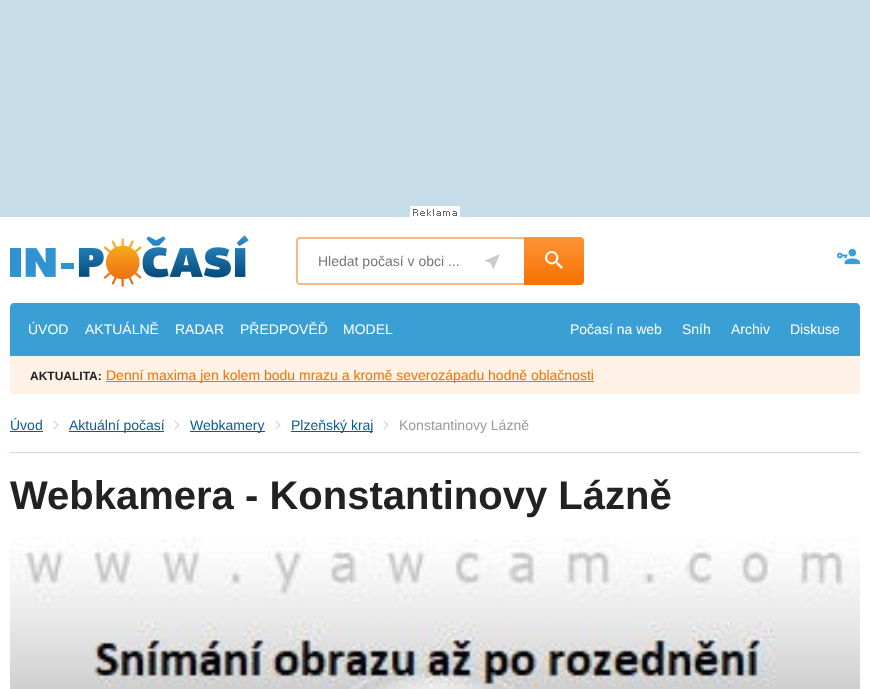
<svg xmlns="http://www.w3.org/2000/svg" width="870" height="689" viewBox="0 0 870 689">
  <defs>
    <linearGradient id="g1" gradientUnits="userSpaceOnUse" x1="554" y1="237" x2="554" y2="285"><stop offset="0" stop-color="#ff9438"/><stop offset="1" stop-color="#f67100"/></linearGradient>
  </defs>
  <rect width="100%" height="100%" fill="#fff"/>
  <path d="M0 0h870v217H0z" fill="#c7dce9"/>
  <image x="410" y="206" width="50" height="11" href="img/1.png"/>
  <image x="10" y="235" width="239" height="52" href="img/2.png"/>
  <rect x="297" y="238" width="286" height="46" rx="3" fill="none" stroke="#f5b986" stroke-width="2"/>
  <image x="485" y="254" width="15" height="15" href="img/3.png"/>
  <path d="M524 237H580C582 237 584 239 584 241V281C584 283 582 285 580 285H524Z" fill="url(#g1)"/>
  <image x="545" y="251" width="18" height="18" href="img/4.png"/>
  <image x="837" y="248" width="23" height="17" href="img/5.png"/>
  <path d="M14 303H856C858 303 860 305 860 307V356H10V307C10 305 12 303 14 303Z" fill="#399fd4"/>
  <path d="M10 356H860V390C860 392 858 394 856 394H14C12 394 10 392 10 390Z" fill="#fef1e6"/>
  <path d="M106 381h488v1H106z" fill="#f67100"/>
  <path d="M10 452h850v1H10z" fill="#c7dce9"/>
  <path d="M10 431h33v1H10z" fill="#0a5b91"/>
  <image x="53" y="420" width="6" height="10" href="img/6.png"/>
  <path d="M69 431h95v1H69z" fill="#0a5b91"/>
  <image x="174" y="420" width="6" height="10" href="img/6.png"/>
  <path d="M190 431h75v1H190z" fill="#0a5b91"/>
  <image x="275" y="420" width="6" height="10" href="img/6.png"/>
  <path d="M291 431h82v1H291z" fill="#0a5b91"/>
  <image x="383" y="420" width="6" height="10" href="img/6.png"/>
  <image x="10" y="537" width="850" height="152" href="img/7.png"/>
  <text x="318" y="266" font-family="Liberation Sans" font-size="14" fill="#757575">Hledat počasí v obci ...</text>
  <g font-family="Liberation Sans" font-size="14" fill="#fff">
    <text x="28" y="334">ÚVOD</text>
    <text x="85" y="334">AKTUÁLNĚ</text>
    <text x="175" y="334">RADAR</text>
    <text x="240" y="334">PŘEDPOVĚĎ</text>
    <text x="343" y="334">MODEL</text>
    <text x="570" y="334">Počasí na web</text>
    <text x="682" y="334">Sníh</text>
    <text x="731" y="334">Archiv</text>
    <text x="790" y="334">Diskuse</text>
  </g>
  <text x="30" y="380" font-family="Liberation Sans" font-size="12" font-weight="bold" fill="#222">AKTUALITA:</text>
  <text x="106" y="380" font-family="Liberation Sans" font-size="14" fill="#f67100">Denní maxima jen kolem bodu mrazu a kromě severozápadu hodně oblačnosti</text>
  <g font-family="Liberation Sans" font-size="14" fill="#0a5b91">
    <text x="10" y="430">Úvod</text>
    <text x="69" y="430">Aktuální počasí</text>
    <text x="190" y="430">Webkamery</text>
    <text x="291" y="430">Plzeňský kraj</text>
  </g>
  <text x="399" y="430" font-family="Liberation Sans" font-size="14" fill="#999">Konstantinovy Lázně</text>
  <text x="10" y="509" font-family="Liberation Sans" font-size="40" font-weight="bold" fill="#222">Webkamera - Konstantinovy Lázně</text>
</svg>
